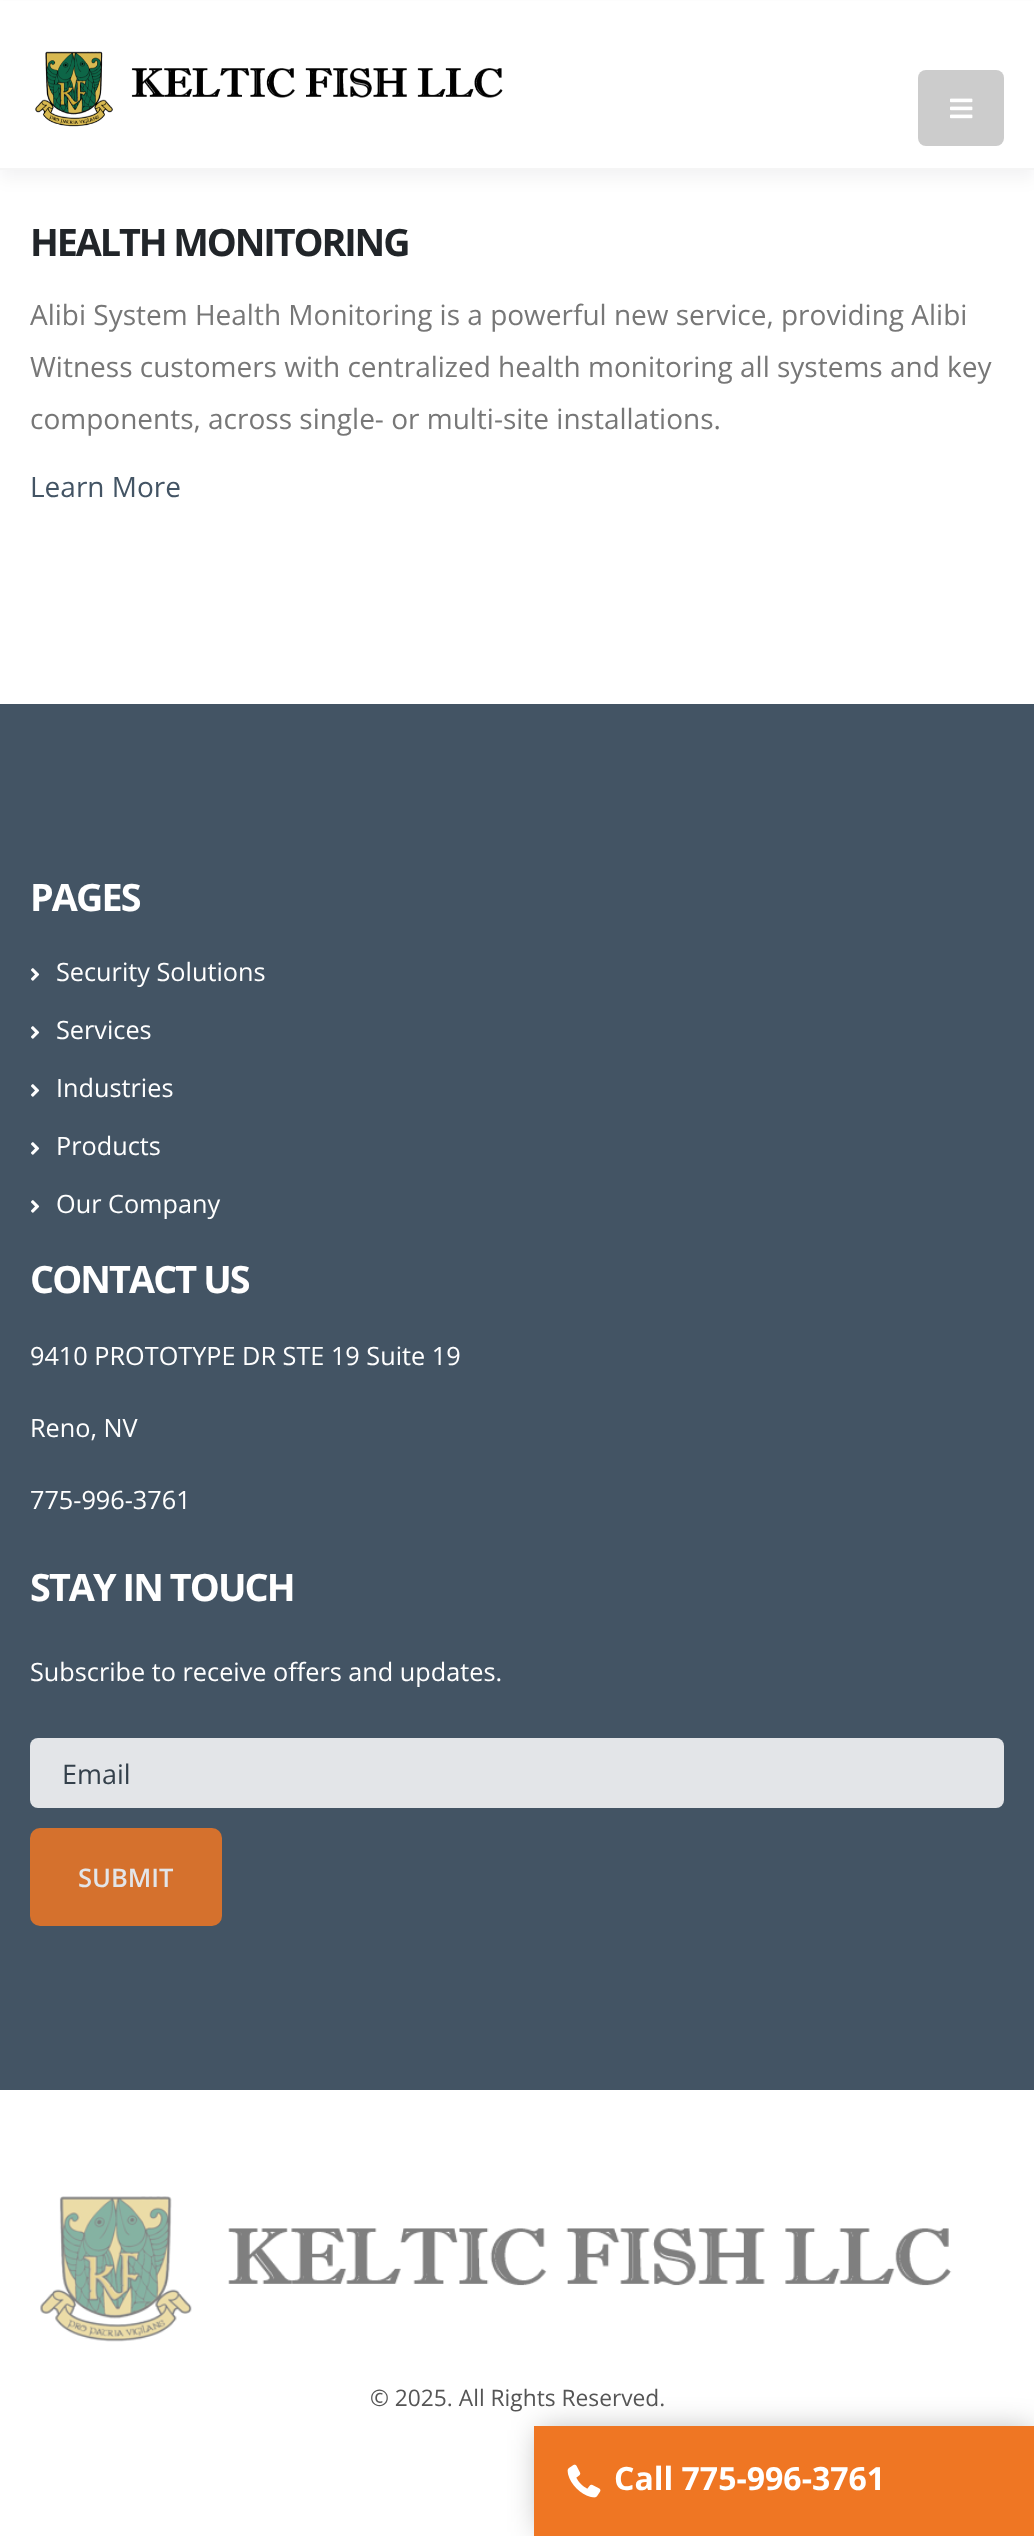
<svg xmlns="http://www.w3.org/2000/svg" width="1034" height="2536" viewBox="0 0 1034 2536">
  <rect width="100%" height="100%" fill="#fff"/>
  <path d="M0 8h1034v170H0z" fill="#0409140d" filter="blur(8.5px)"/>
  <path d="M0 1h1034v167H0z" fill="#fff"/>
  <path d="M0 168h1034v2H0z" fill="#f5f5f5"/>
  <image x="35" y="51" width="468" height="76" href="img/1.png"/>
  <rect x="918" y="70" width="86" height="76" rx="8" fill="#ccc"/>
  <image x="950" y="98" width="23" height="21" href="img/2.png"/>
  <path d="M0 704h1034v1386H0z" fill="#435464"/>
  <image x="31" y="968" width="9" height="13" href="img/3.png"/>
  <image x="31" y="1026" width="9" height="13" href="img/3.png"/>
  <image x="31" y="1084" width="9" height="13" href="img/3.png"/>
  <image x="31" y="1142" width="9" height="13" href="img/3.png"/>
  <image x="31" y="1200" width="9" height="13" href="img/3.png"/>
  <rect x="30" y="1738" width="974" height="70" rx="8" fill="#e3e5e8"/>
  <rect x="30" y="1828" width="192" height="98" rx="10" fill="#d5712d"/>
  <image x="40" y="2196" width="912" height="146" href="img/4.png"/>
  <path d="M540 2430h492v102H540z" fill="#0000004d" filter="blur(15px)"/>
  <path d="M534 2426h500v110H534z" fill="#ef7623"/>
  <image x="567" y="2464" width="34" height="34" href="img/5.png"/>
  <text x="30" y="256" font-family="Open Sans" font-size="37.75" font-weight="bold" letter-spacing="-2.1" fill="#212529">HEALTH MONITORING</text>
  <g font-family="Open Sans" font-size="28" fill="#777">
    <text x="30" y="325">Alibi System Health Monitoring is a powerful new service, providing Alibi</text>
    <text x="30" y="377">Witness customers with centralized health monitoring all systems and key</text>
    <text x="30" y="429">components, across single- or multi-site installations.</text>
  </g>
  <text x="30" y="497" font-family="Open Sans" font-size="28" fill="#435464">Learn More</text>
  <text x="30" y="911" font-family="Open Sans" font-size="37.75" font-weight="bold" letter-spacing="-1.9" fill="#fff">PAGES</text>
  <g font-family="Open Sans" font-size="25.25" fill="#fff">
    <text x="56" y="981">Security Solutions</text>
    <text x="56" y="1039">Services</text>
    <text x="56" y="1097">Industries</text>
    <text x="56" y="1155">Products</text>
    <text x="56" y="1213">Our Company</text>
  </g>
  <text x="30" y="1293" font-family="Open Sans" font-size="37.75" font-weight="bold" letter-spacing="-1.9" fill="#fff">CONTACT US</text>
  <g font-family="Open Sans" font-size="25.25" fill="#fff">
    <text x="30" y="1365">9410 PROTOTYPE DR STE 19 Suite 19</text>
    <text x="30" y="1437">Reno, NV</text>
    <text x="30" y="1509">775-996-3761</text>
  </g>
  <text x="30" y="1601" font-family="Open Sans" font-size="37.75" font-weight="bold" letter-spacing="-1.9" fill="#fff">STAY IN TOUCH</text>
  <text x="30" y="1681" font-family="Open Sans" font-size="25.25" fill="#fff">Subscribe to receive offers and updates.</text>
  <text x="62" y="1784" font-family="Open Sans" font-size="27" fill="#34404b">Email</text>
  <text x="78" y="1887" font-family="Open Sans" font-size="25.5" font-weight="600" fill="#e3e5e8">SUBMIT</text>
  <text x="370" y="2406" font-family="Open Sans" font-size="22.75" fill="#555">© 2025. All Rights Reserved.</text>
  <text x="614" y="2490" font-family="Open Sans" font-size="32" font-weight="bold" fill="#fff">Call 775-996-3761</text>
</svg>
